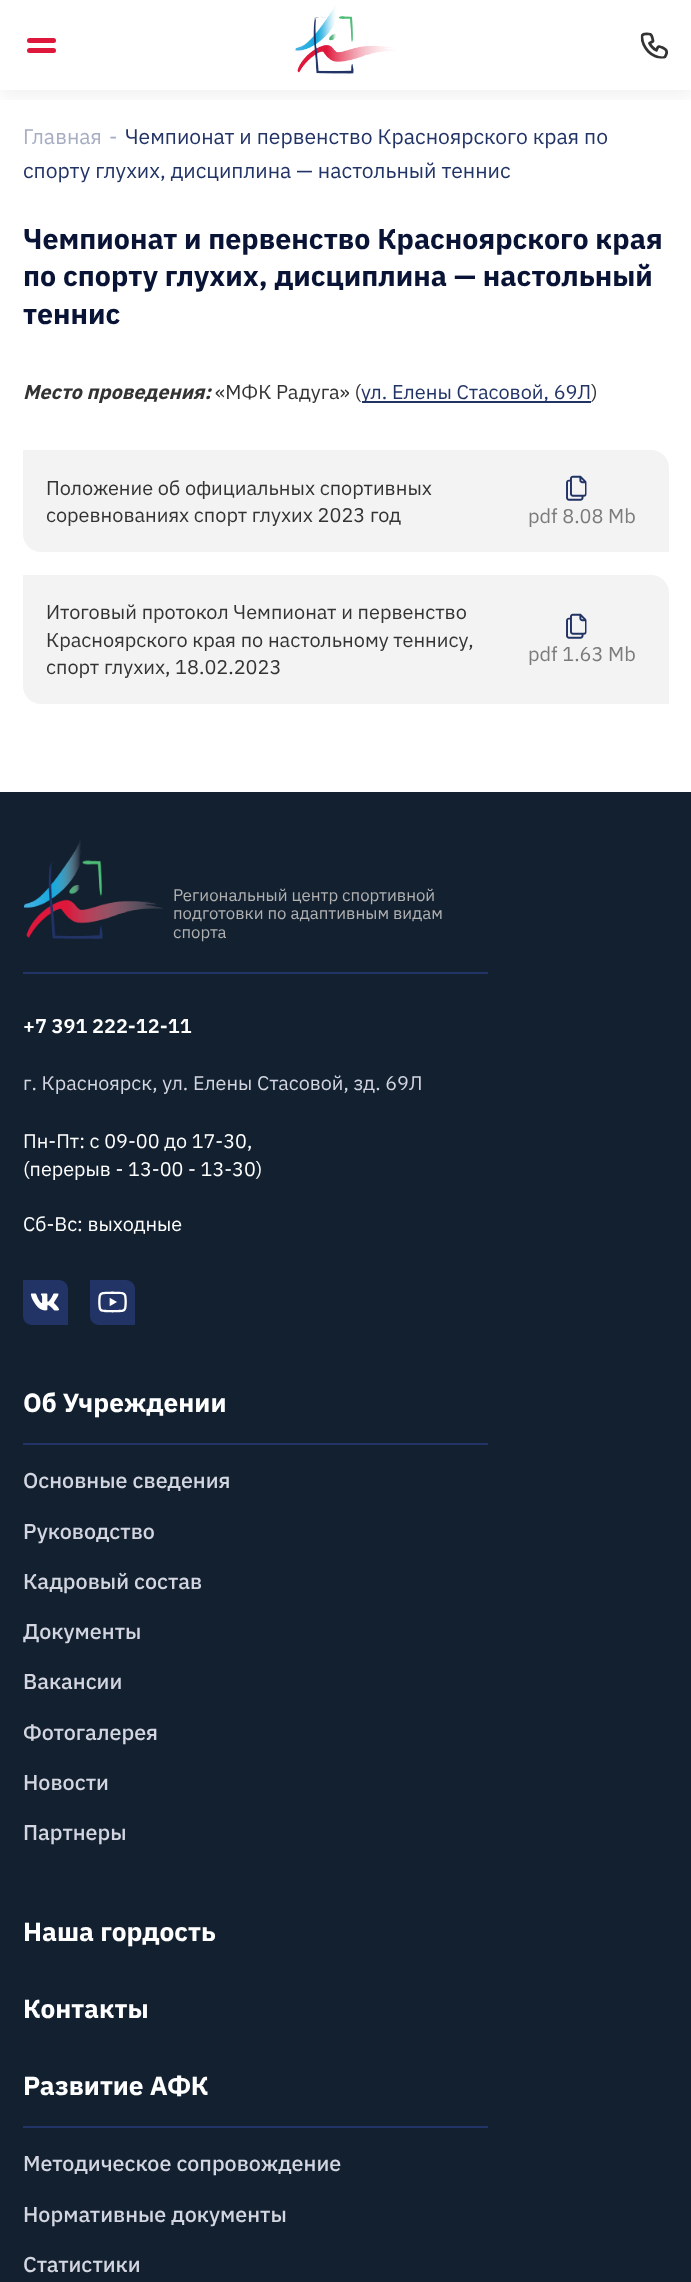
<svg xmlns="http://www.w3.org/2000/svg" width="691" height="2282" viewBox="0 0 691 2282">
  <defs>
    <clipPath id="clip1"><path d="M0 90h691v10H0z"/></clipPath>
  </defs>
  <rect width="100%" height="100%" fill="#fff"/>
  <g clip-path="url(#clip1)">
    <path d="M0 6h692v90H0z" fill="#0000000f" filter="blur(10px)"/>
  </g>
  <rect x="27" y="38" width="29" height="5" rx="2.5" fill="#de173b"/>
  <rect x="27" y="48" width="29" height="5" rx="2.5" fill="#de173b"/>
  <image x="295" y="5" width="101" height="69" href="img/1.png"/>
  <image x="640" y="32" width="28" height="27" href="img/2.png"/>
  <path d="M362 401h229v2H362z" fill="#236"/>
  <path d="M23 450H651C661 450 669 458 669 468V552H41C31 552 23 544 23 534Z" fill="#f3f3f3"/>
  <image x="566" y="475" width="21" height="26" href="img/3.png"/>
  <path d="M23 575H651C661 575 669 583 669 593V704H41C31 704 23 696 23 686Z" fill="#f3f3f3"/>
  <image x="566" y="613" width="21" height="26" href="img/3.png"/>
  <path d="M0 792h691v1490H0z" fill="#122030"/>
  <path d="M23 972h465v2H23z" fill="#236"/>
  <image x="24" y="839" width="139" height="100" href="img/4.png"/>
  <path d="M23 1280H59C64 1280 68 1284 68 1289V1325H32C27 1325 23 1321 23 1316Z" fill="#236"/>
  <image x="30" y="1293" width="29" height="18" href="img/5.png"/>
  <path d="M90 1280H126C131 1280 135 1284 135 1289V1325H99C94 1325 90 1321 90 1316Z" fill="#236"/>
  <image x="98" y="1291" width="29" height="22" href="img/6.png"/>
  <path d="M23 1443h465v2H23z" fill="#236"/>
  <path d="M23 2126h465v2H23z" fill="#236"/>
  <text x="23" y="144" font-family="IBM Plex Sans" font-size="21.1" fill="#a7adc2">Главная</text>
  <text x="109" y="144" font-family="IBM Plex Sans" font-size="21" fill="#a7adc2">-</text>
  <g font-family="IBM Plex Sans" font-size="21.1" fill="#236">
    <text x="125" y="144">Чемпионат и первенство Красноярского края по</text>
    <text x="23" y="178">спорту глухих, дисциплина — настольный теннис</text>
  </g>
  <g font-family="IBM Plex Sans" font-size="28.6" font-weight="bold" fill="#091335">
    <text x="23" y="249">Чемпионат и первенство Красноярского края</text>
    <text x="23" y="286">по спорту глухих, дисциплина — настольный</text>
    <text x="23" y="324">теннис</text>
  </g>
  <text x="23" y="399" font-family="IBM Plex Sans" font-size="19.9" font-weight="bold" font-style="italic" fill="#333">Место проведения:</text>
  <text x="215" y="399" font-family="IBM Plex Sans" font-size="19.9" fill="#333">«МФК Радуга» (</text>
  <text x="361" y="399" font-family="IBM Plex Sans" font-size="19.9" fill="#236">ул. Елены Стасовой, 69Л</text>
  <g font-family="IBM Plex Sans" font-size="19.9" fill="#333">
    <text x="591" y="399">)</text>
    <text x="46" y="495">Положение об официальных спортивных</text>
    <text x="46" y="522">соревнованиях спорт глухих 2023 год</text>
  </g>
  <text x="528" y="523" font-family="IBM Plex Sans" font-size="19.9" fill="#7b7b7b">pdf 8.08 Mb</text>
  <g font-family="IBM Plex Sans" font-size="19.9" fill="#333">
    <text x="46" y="619">Итоговый протокол Чемпионат и первенство</text>
    <text x="46" y="647">Красноярского края по настольному теннису,</text>
    <text x="46" y="674">спорт глухих, 18.02.2023</text>
  </g>
  <text x="528" y="661" font-family="IBM Plex Sans" font-size="19.9" fill="#7b7b7b">pdf 1.63 Mb</text>
  <g font-family="IBM Plex Sans" font-size="16.75" fill="#b1b1b1">
    <text x="173" y="901">Региональный центр спортивной</text>
    <text x="173" y="919">подготовки по адаптивным видам</text>
    <text x="173" y="938">спорта</text>
  </g>
  <text x="23" y="1033" font-family="IBM Plex Sans" font-size="19.9" font-weight="600" fill="#fff">+7 391 222-12-11</text>
  <text x="23" y="1090" font-family="IBM Plex Sans" font-size="19.75" fill="#d3d6e0">г. Красноярск, ул. Елены Стасовой, зд. 69Л</text>
  <g font-family="IBM Plex Sans" font-size="19.75" fill="#fff">
    <text x="23" y="1148">Пн-Пт: с 09-00 до 17-30,</text>
    <text x="23" y="1176">(перерыв - 13-00 - 13-30)</text>
    <text x="23" y="1231">Сб-Вс: выходные</text>
  </g>
  <text x="23" y="1412" font-family="IBM Plex Sans" font-size="26.25" font-weight="bold" fill="#fff">Об Учреждении</text>
  <g font-family="IBM Plex Sans" font-size="21.5" font-weight="500" fill="#d3d6e0">
    <text x="23" y="1488">Основные сведения</text>
    <text x="23" y="1539">Руководство</text>
    <text x="23" y="1589">Кадровый состав</text>
    <text x="23" y="1639">Документы</text>
    <text x="23" y="1689">Вакансии</text>
    <text x="23" y="1740">Фотогалерея</text>
    <text x="23" y="1790">Новости</text>
    <text x="23" y="1840">Партнеры</text>
  </g>
  <g font-family="IBM Plex Sans" font-size="26.25" font-weight="bold" fill="#fff">
    <text x="23" y="1941">Наша гордость</text>
    <text x="23" y="2018">Контакты</text>
    <text x="23" y="2095">Развитие АФК</text>
  </g>
  <g font-family="IBM Plex Sans" font-size="21.5" font-weight="500" fill="#d3d6e0">
    <text x="23" y="2171">Методическое сопровождение</text>
    <text x="23" y="2222">Нормативные документы</text>
    <text x="23" y="2272">Статистики</text>
  </g>
</svg>
